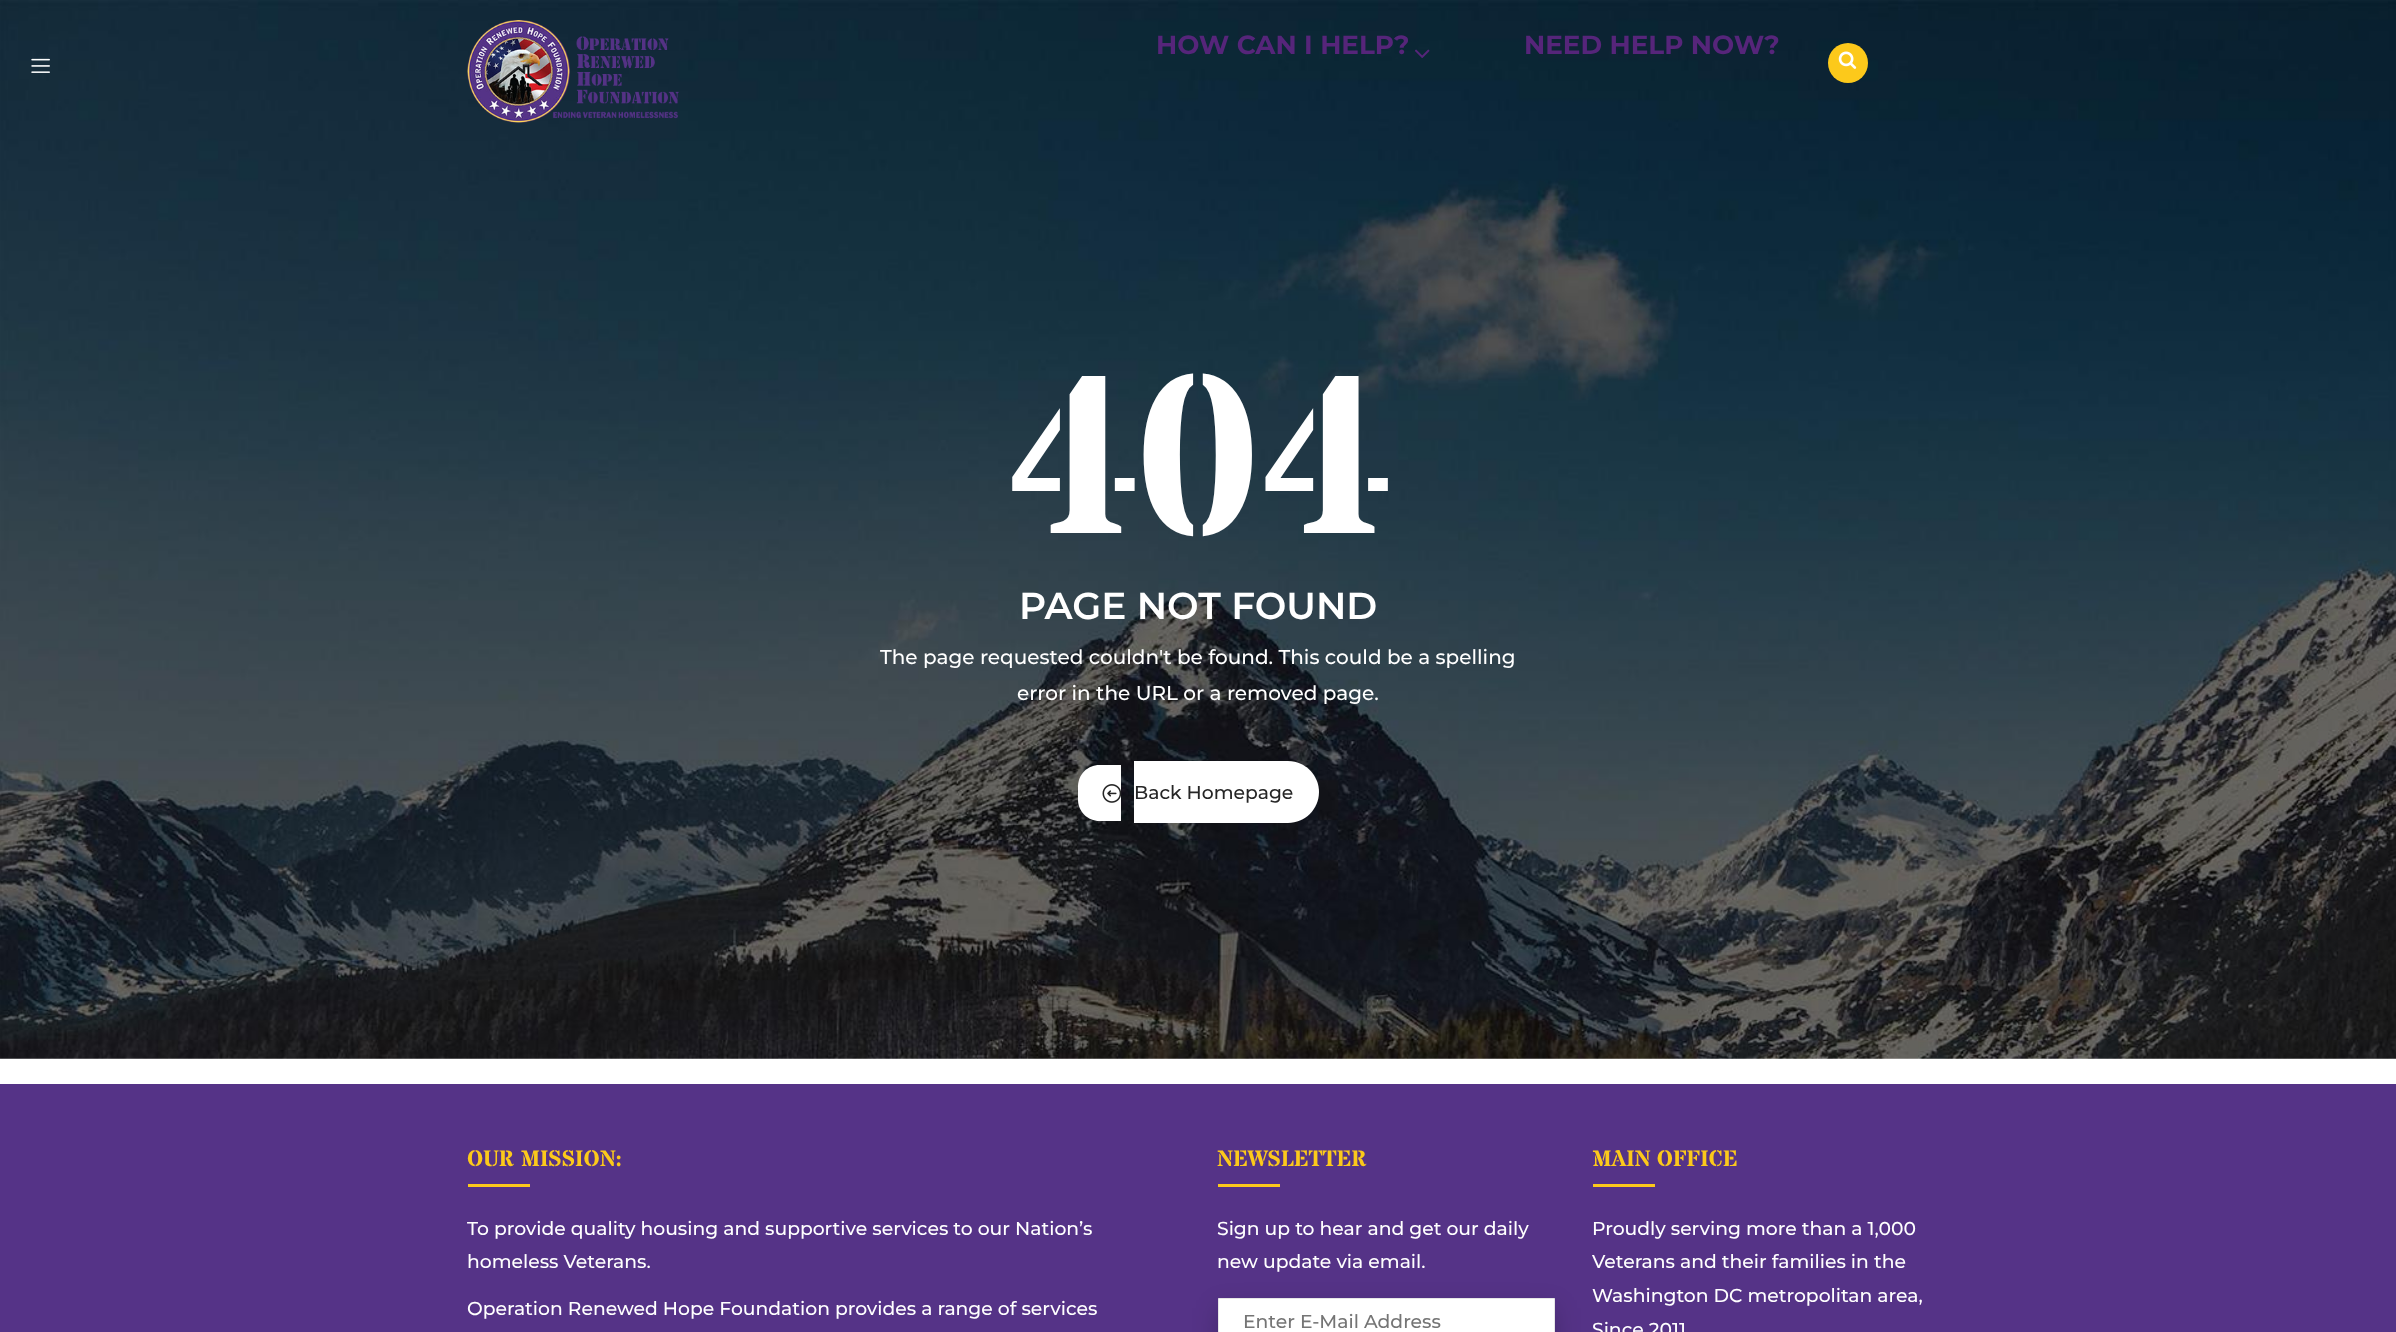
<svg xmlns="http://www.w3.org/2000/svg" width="2396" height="1332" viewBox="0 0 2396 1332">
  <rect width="100%" height="100%" fill="#fff"/>
  <image x="0" y="0" width="2396" height="1059" href="img/5.png"/>
  <image x="467" y="20" width="212" height="103" href="img/1.png"/>
  <image x="1415" y="49" width="15" height="9" href="img/2.png"/>
  <circle cx="1848" cy="63" r="20" fill="#fcc91b"/>
  <image x="1838" y="51" width="19" height="18" href="img/3.png"/>
  <image x="31" y="58" width="19" height="15" href="img/4.png"/>
  <path d="M1099.5 765H1121V821H1099.5C1087.5 821 1078 811.5 1078 799.5V786.5C1078 774.5 1087.5 765 1099.5 765Z" fill="#fff"/>
  <image x="1102" y="784" width="20" height="19" href="img/6.png"/>
  <path d="M1134 761H1288C1305 761 1319 775 1319 792C1319 809 1305 823 1288 823H1134Z" fill="#fff"/>
  <path d="M0 1084h2396v248H0z" fill="#553387"/>
  <path d="M468 1184h62v3H468z" fill="#fcc91b"/>
  <path d="M1218 1184h62v3H1218z" fill="#fcc91b"/>
  <path d="M1218 1308h337v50H1218z" fill="#00000033" filter="blur(12.5px)"/>
  <path d="M1218.5 1298.5h336v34H1218.5z" fill="#fff" stroke="#e6e6e6"/>
  <path d="M1593 1184h62v3H1593z" fill="#fcc91b"/>
  <g font-family="Montserrat" font-size="26.25" font-weight="bold" fill="#56257a">
    <text x="1156" y="54">HOW CAN I HELP?</text>
    <text x="1524" y="54">NEED HELP NOW?</text>
  </g>
  <text x="1008" y="533" font-family="Stardos Stencil" font-size="225" font-weight="bold" fill="#fff">404</text>
  <text x="1019" y="619" font-family="Montserrat" font-size="37.5" font-weight="600" fill="#fff">PAGE NOT FOUND</text>
  <g font-family="Montserrat" font-size="20" font-weight="500" fill="#fff">
    <text x="880" y="664">The page requested couldn't be found. This could be a spelling</text>
    <text x="1017" y="700">error in the URL or a removed page.</text>
  </g>
  <text x="1134" y="799" font-family="Montserrat" font-size="18.75" font-weight="500" fill="#262626">Back Homepage</text>
  <text x="467" y="1166" font-family="Stardos Stencil" font-size="22.5" font-weight="bold" fill="#fcc91b">OUR MISSION:</text>
  <g font-family="Montserrat" font-size="18.75" font-weight="500" fill="#fff">
    <text x="467" y="1235">To provide quality housing and supportive services to our Nation’s</text>
    <text x="467" y="1268">homeless Veterans.</text>
    <text x="467" y="1315">Operation Renewed Hope Foundation provides a range of services</text>
  </g>
  <text x="1217" y="1166" font-family="Stardos Stencil" font-size="22.5" font-weight="bold" fill="#fcc91b">NEWSLETTER</text>
  <g font-family="Montserrat" font-size="18.75" font-weight="500" fill="#fff">
    <text x="1217" y="1235">Sign up to hear and get our daily</text>
    <text x="1217" y="1268">new update via email.</text>
  </g>
  <text x="1243" y="1328" font-family="Montserrat" font-size="18.75" font-weight="500" fill="#757575">Enter E-Mail Address</text>
  <text x="1592" y="1166" font-family="Stardos Stencil" font-size="22.5" font-weight="bold" fill="#fcc91b">MAIN OFFICE</text>
  <g font-family="Montserrat" font-size="18.75" font-weight="500" fill="#fff">
    <text x="1592" y="1235">Proudly serving more than a 1,000</text>
    <text x="1592" y="1268">Veterans and their families in the</text>
    <text x="1592" y="1302">Washington DC metropolitan area,</text>
    <text x="1592" y="1336">Since 2011</text>
  </g>
</svg>
